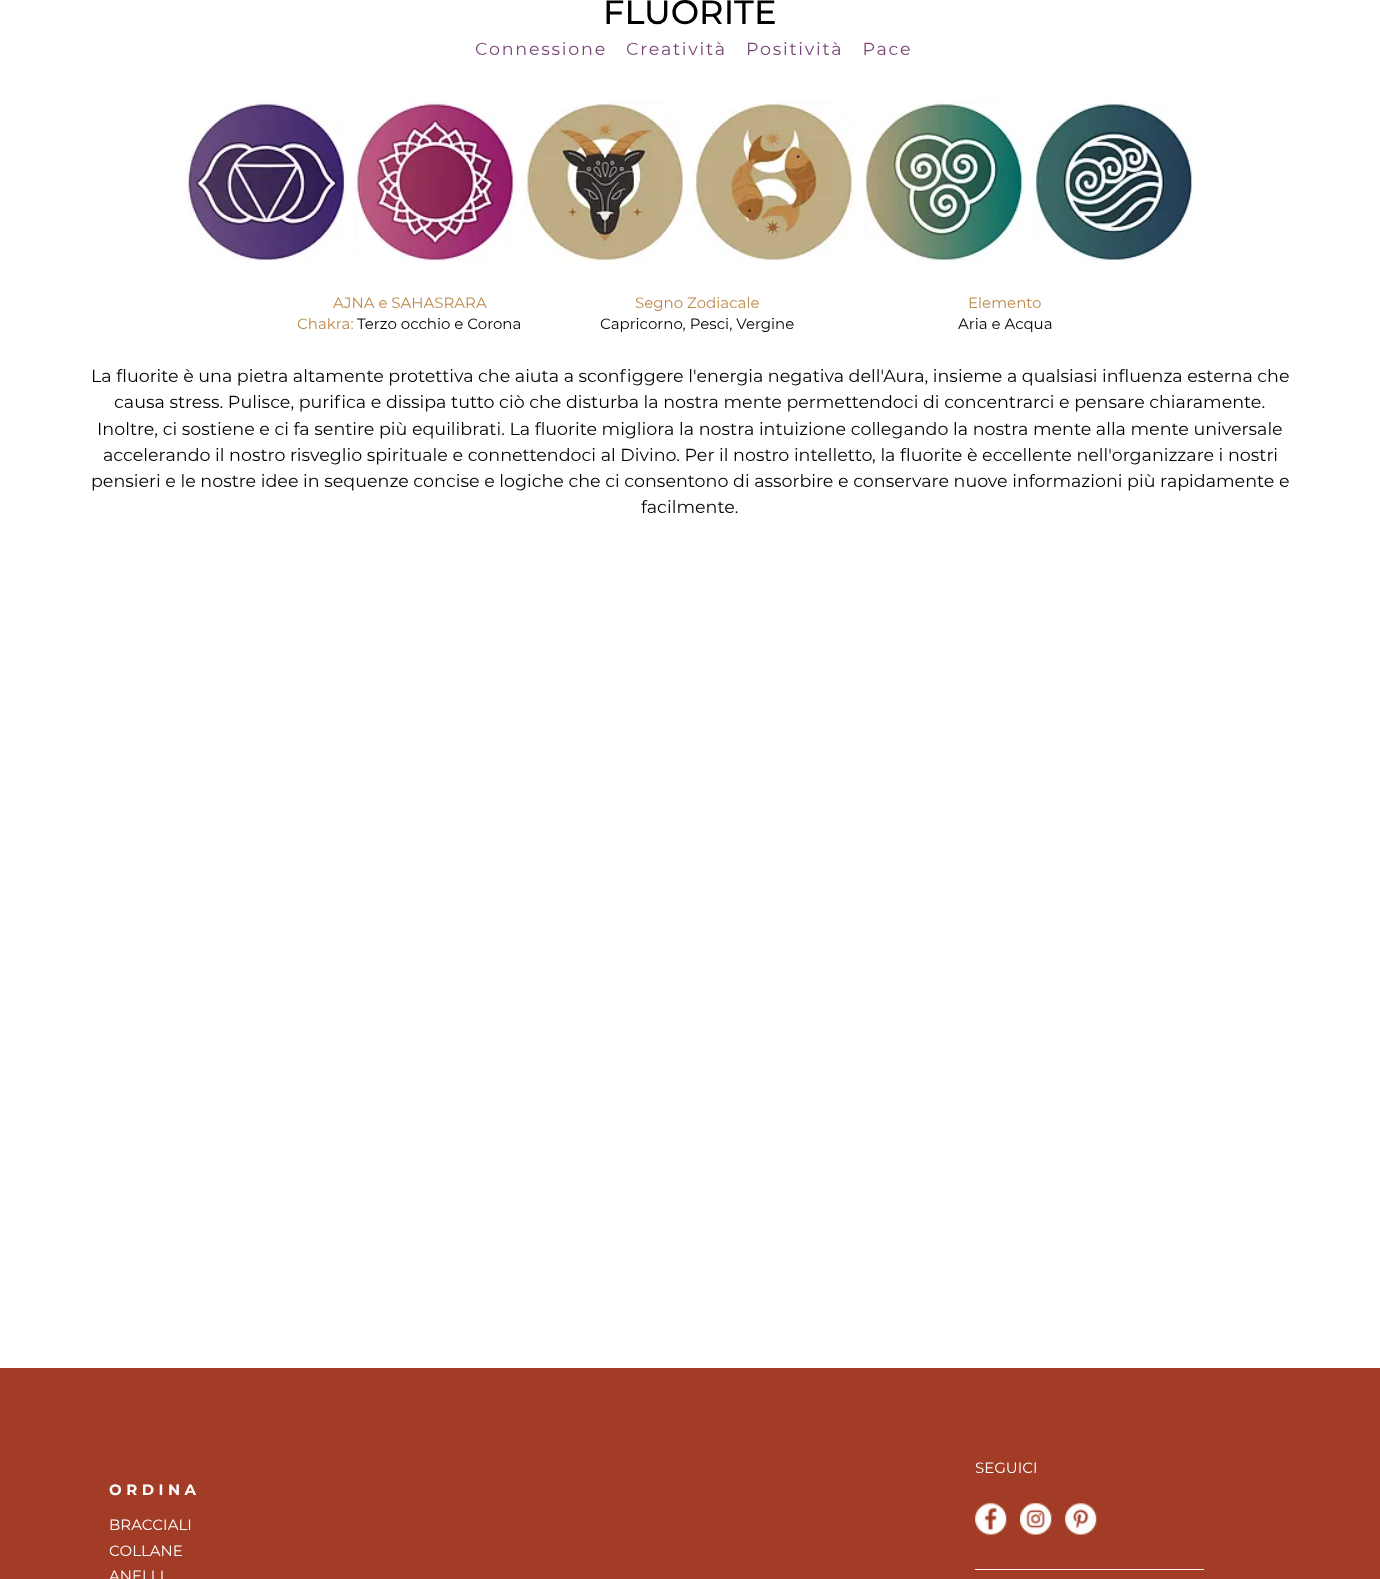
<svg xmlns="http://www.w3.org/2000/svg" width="1380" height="1579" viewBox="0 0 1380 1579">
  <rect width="100%" height="100%" fill="#fff"/>
  <image x="185" y="101" width="161" height="160" href="img/1.png"/>
  <image x="354" y="101" width="161" height="161" href="img/2.png"/>
  <image x="524" y="101" width="160" height="160" href="img/3.png"/>
  <image x="693" y="101" width="160" height="160" href="img/4.png"/>
  <image x="863" y="101" width="161" height="162" href="img/5.png"/>
  <image x="1033" y="101" width="160" height="160" href="img/6.png"/>
  <path d="M0 1368h1380v211H0z" fill="#a23c26"/>
  <image x="975" y="1503" width="32" height="32" href="img/7.png"/>
  <image x="1020" y="1503" width="32" height="32" href="img/8.png"/>
  <image x="1065" y="1503" width="32" height="32" href="img/9.png"/>
  <path d="M975 1569h229v1H975z" fill="#fff"/>
  <text x="603" y="24" font-family="Montserrat" font-size="33.75" font-weight="500" fill="#000">FLUORITE</text>
  <text x="475" y="55" font-family="Montserrat" font-size="17.5" letter-spacing="1.75" fill="#794577" xml:space="preserve">Connessione   Creatività   Positività   Pace</text>
  <g font-family="Montserrat" font-size="15" fill="#be894a">
    <text x="333" y="308">AJNA e SAHASRARA</text>
    <text x="297" y="329">Chakra:</text>
  </g>
  <text x="357" y="329" font-family="Montserrat" font-size="15" fill="#000">Terzo occhio e Corona</text>
  <text x="635" y="308" font-family="Montserrat" font-size="15" fill="#be894a">Segno Zodiacale</text>
  <text x="600" y="329" font-family="Montserrat" font-size="15" fill="#000">Capricorno, Pesci, Vergine</text>
  <text x="968" y="308" font-family="Montserrat" font-size="15" fill="#be894a">Elemento</text>
  <text x="958" y="329" font-family="Montserrat" font-size="15" fill="#000">Aria e Acqua</text>
  <g font-family="Montserrat" font-size="17.5" fill="#000">
    <text x="91" y="382">La fluorite è una pietra altamente protettiva che aiuta a sconfiggere l'energia negativa dell'Aura, insieme a qualsiasi influenza esterna che</text>
    <text x="114" y="408">causa stress. Pulisce, purifica e dissipa tutto ciò che disturba la nostra mente permettendoci di concentrarci e pensare chiaramente.</text>
    <text x="97" y="435">Inoltre, ci sostiene e ci fa sentire più equilibrati. La fluorite migliora la nostra intuizione collegando la nostra mente alla mente universale</text>
    <text x="103" y="461">accelerando il nostro risveglio spirituale e connettendoci al Divino. Per il nostro intelletto, la fluorite è eccellente nell'organizzare i nostri</text>
    <text x="91" y="487">pensieri e le nostre idee in sequenze concise e logiche che ci consentono di assorbire e conservare nuove informazioni più rapidamente e</text>
    <text x="641" y="513">facilmente.</text>
  </g>
  <text x="975" y="1473" font-family="Montserrat" font-size="15" fill="#fff">SEGUICI</text>
  <text x="109" y="1495" font-family="Montserrat" font-size="15" font-weight="bold" letter-spacing="4.5" fill="#fff">ORDINA</text>
  <g font-family="Montserrat" font-size="15" fill="#fff">
    <text x="109" y="1530">BRACCIALI</text>
    <text x="109" y="1556">COLLANE</text>
    <text x="109" y="1581">ANELLI</text>
  </g>
</svg>
